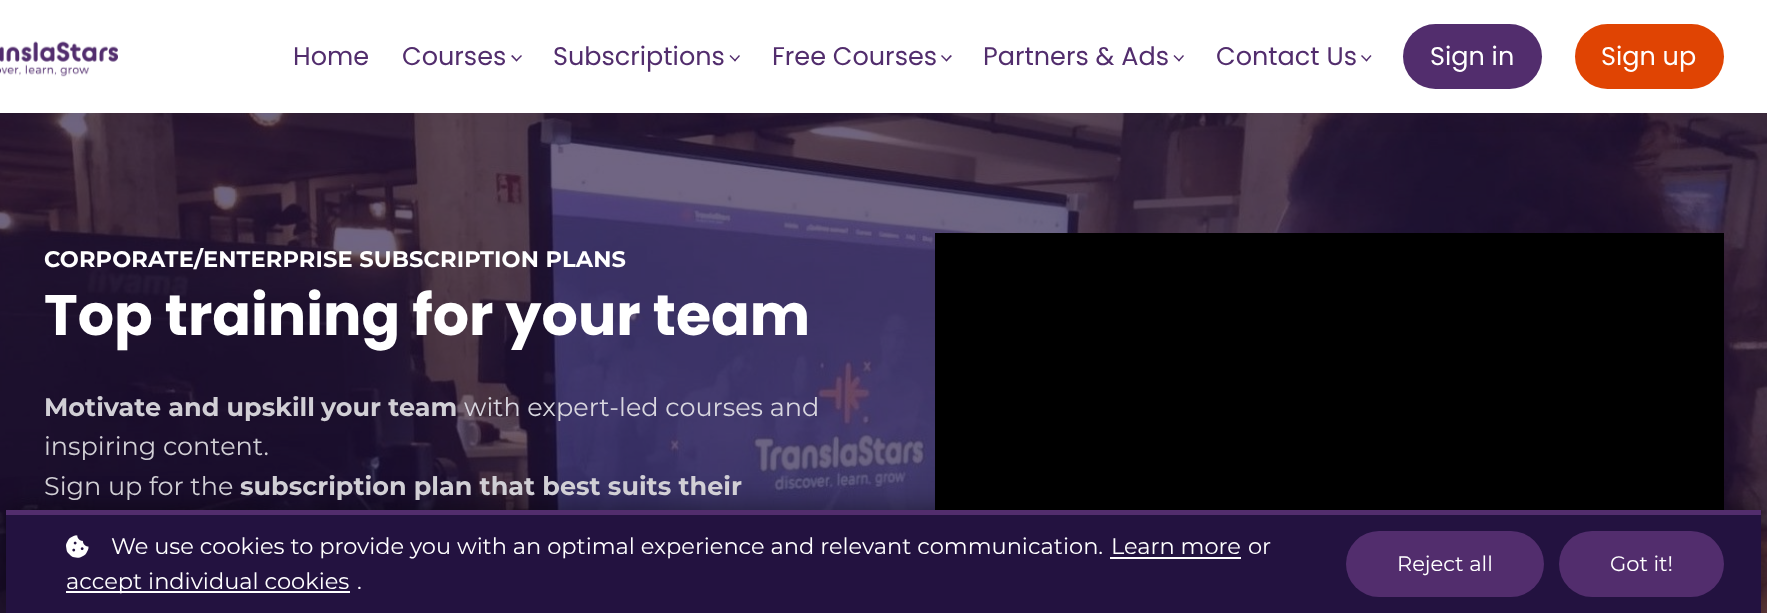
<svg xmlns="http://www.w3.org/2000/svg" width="1767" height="613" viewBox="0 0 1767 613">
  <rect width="100%" height="100%" fill="#fff"/>
  <image x="0" y="113" width="1767" height="500" href="img/2.png"/>
  <path d="M0 0h1767v113H0z" fill="#0000000d" filter="blur(11px)"/>
  <path d="M0 0h1767v113H0z" fill="#fff"/>
  <image x="0" y="41" width="118" height="36" href="img/1.png"/>
  <path d="M522 56L516.5 61.5L515.5 60.5L521 55Z" fill="#522d6d"/>
  <path d="M517.5 60.5L516.5 61.5L511 56L512.5 55Z" fill="#522d6d"/>
  <path d="M740 56L735 61.5L734 60.5L739 55Z" fill="#522d6d"/>
  <path d="M736 60.5L735 61.5L729.5 56L730.5 55Z" fill="#522d6d"/>
  <path d="M952 56L946.5 61.5L945.5 60.5L950.5 55Z" fill="#522d6d"/>
  <path d="M947.5 60.5L946.5 61.5L941 56L942 55Z" fill="#522d6d"/>
  <path d="M1184 56L1179 61.5L1178 60.5L1183 55Z" fill="#522d6d"/>
  <path d="M1180 60.5L1179 61.5L1173.5 56L1174.5 55Z" fill="#522d6d"/>
  <path d="M1371.5 56L1366.5 61.5L1365.5 60.5L1370.5 55Z" fill="#522d6d"/>
  <path d="M1367.5 60.5L1366.5 61.5L1361 56L1362 55Z" fill="#522d6d"/>
  <rect x="1403" y="24" width="139" height="65" rx="32.5" fill="#522d6d"/>
  <rect x="1575" y="24" width="149" height="65" rx="32.5" fill="#e04403"/>
  <path d="M935 233h789v277H935z" fill="#000"/>
  <path d="M6 510h1755v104H6z" fill="#00000080" filter="blur(15px)"/>
  <path d="M6 515h1755v98H6z" fill="#231240"/>
  <path d="M6 510h1755v5H6z" fill="#522d6d"/>
  <image x="66" y="535" width="23" height="23" href="img/3.png"/>
  <path d="M1110 557h131v2H1110z" fill="#fff"/>
  <path d="M66 591h284v2H66z" fill="#fff"/>
  <rect x="1346" y="531" width="198" height="66" rx="33" fill="#522d6d"/>
  <rect x="1559" y="531" width="165" height="66" rx="33" fill="#522d6d"/>
  <g font-family="Poppins" font-size="25.5" fill="#522d6d">
    <text x="293" y="65">Home</text>
    <text x="402" y="65">Courses</text>
    <text x="553" y="65">Subscriptions</text>
    <text x="772" y="65">Free Courses</text>
    <text x="983" y="65">Partners &amp; Ads</text>
    <text x="1216" y="65">Contact Us</text>
  </g>
  <g font-family="Poppins" font-size="25.5" fill="#fff">
    <text x="1430" y="65">Sign in</text>
    <text x="1601" y="65">Sign up</text>
  </g>
  <text x="44" y="267" font-family="Montserrat" font-size="22.5" font-weight="bold" letter-spacing="0.15" fill="#fff">CORPORATE/ENTERPRISE SUBSCRIPTION PLANS</text>
  <text x="44" y="335" font-family="Poppins" font-size="57" font-weight="bold" fill="#fff">Top training for your team</text>
  <g font-family="Montserrat" font-size="25.5" font-weight="bold" fill="#d1cfd5">
    <text x="44" y="416">Motivate and upskill</text>
    <text x="321" y="416">your team</text>
  </g>
  <text x="464" y="416" font-family="Montserrat" font-size="25.5" fill="#d8d6df">with expert-led courses and</text>
  <g font-family="Montserrat" font-size="25.5" fill="#d1cfd5">
    <text x="44" y="455">inspiring content.</text>
    <text x="44" y="495">Sign up for the</text>
  </g>
  <text x="240" y="495" font-family="Montserrat" font-size="25.5" font-weight="bold" fill="#d1cfd5">subscription plan that best suits their</text>
  <g font-family="Montserrat" font-size="22.5" fill="#fff">
    <text x="111" y="554">We use cookies to provide you with an optimal experience and relevant communication.</text>
    <text x="1111" y="554">Learn more</text>
    <text x="1248" y="554">or</text>
    <text x="66" y="589">accept individual cookies</text>
    <text x="357" y="589">.</text>
  </g>
  <g font-family="Montserrat" font-size="21" fill="#fff">
    <text x="1397" y="571">Reject all</text>
    <text x="1610" y="571">Got it!</text>
  </g>
</svg>
